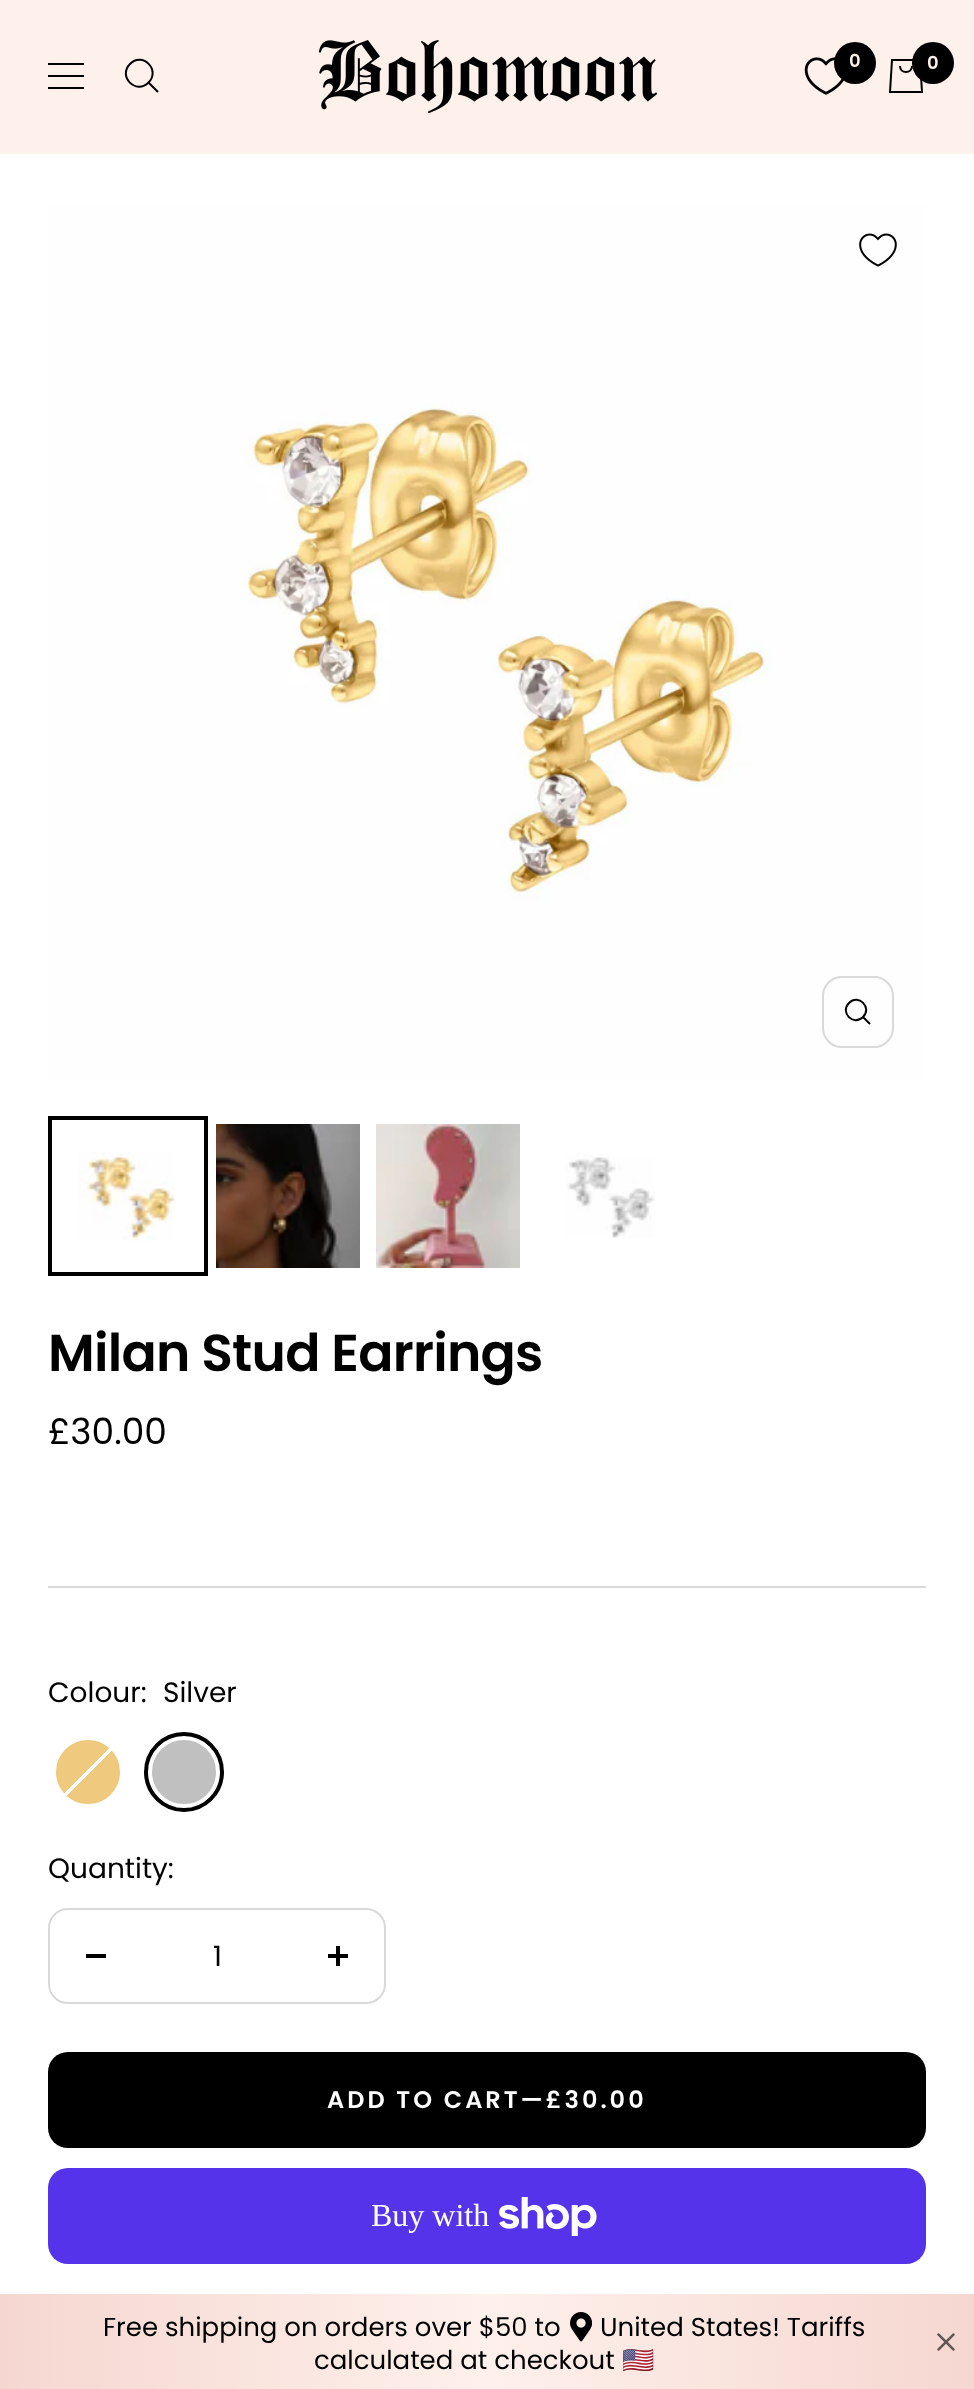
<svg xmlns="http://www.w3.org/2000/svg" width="974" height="2389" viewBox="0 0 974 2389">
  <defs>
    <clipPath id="clip1"><rect x="52" y="1736" width="72" height="72" rx="36"/></clipPath>
    <linearGradient id="g1" gradientUnits="userSpaceOnUse" x1="56" y1="1740" x2="120" y2="1804"><stop offset="0.48" stop-color="#fff" stop-opacity="0"/><stop offset="0.48" stop-color="#fff"/><stop offset="0.52" stop-color="#fff"/><stop offset="0.52" stop-color="#fff" stop-opacity="0"/></linearGradient>
    <linearGradient id="g2" gradientUnits="userSpaceOnUse" x1="0" y1="2342" x2="974" y2="2342"><stop offset="0" stop-color="#f5d7d0"/><stop offset="0.5" stop-color="#fef0eb"/><stop offset="1" stop-color="#f5d7d0"/></linearGradient>
  </defs>
  <rect width="100%" height="100%" fill="#fff"/>
  <path d="M0 0h974v154H0z" fill="#fef0eb"/>
  <path d="M48 64H84M48 88H84ZM48 76H84Z" fill="none" stroke="#000" stroke-width="2"/>
  <path d="M148.5 82.5C161 70 142.5 51.5 130 64C117.5 76.5 136 95 148.5 82.5ZM148.5 82.5L158 92" fill="none" stroke="#000" stroke-width="2"/>
  <image x="318" y="40" width="340" height="73" href="img/1.png"/>
  <image x="804" y="57" width="41" height="38" href="img/2.png"/>
  <circle cx="855" cy="63" r="21" fill="#000"/>
  <path d="M892 60H920L922 92H890ZM900 66C900 74 912 74 912 66" fill="none" stroke="#000" stroke-width="2"/>
  <circle cx="933" cy="63" r="21" fill="#000"/>
  <image x="48" y="202" width="878" height="878" href="img/3.png"/>
  <rect x="823" y="977" width="70" height="70" rx="19" fill="none" stroke="#d9d9d9" stroke-width="2"/>
  <path d="M863 1017C872.5 1007.5 858.5 993.5 849 1003C839.5 1012.5 853.5 1026.5 863 1017ZM863 1017L870 1024" fill="none" stroke="#000" stroke-width="2"/>
  <image x="859" y="233" width="38" height="34" href="img/4.png"/>
  <image x="78" y="1152" width="97" height="90" href="img/5.png"/>
  <path d="M50 1118h156v156H50z" fill="none" stroke="#000" stroke-width="4"/>
  <image x="216" y="1124" width="144" height="144" href="img/6.png"/>
  <image x="376" y="1124" width="144" height="144" href="img/7.png"/>
  <image x="565" y="1154" width="90" height="84" href="img/8.png"/>
  <path d="M48 1586h878v2H48z" fill="#d9d9d9"/>
  <circle cx="88" cy="1772" r="37" fill="#efc97d" stroke="#fff" stroke-width="6"/>
  <g clip-path="url(#clip1)">
    <path d="M61 1745h54v54H61z" fill="url(#g1)"/>
  </g>
  <circle cx="88" cy="1772" r="34" fill="none" stroke="#fff" stroke-width="4"/>
  <circle cx="184" cy="1772" r="37" fill="#c0c0c0" stroke="#fff" stroke-width="6"/>
  <circle cx="184" cy="1772" r="34" fill="none" stroke="#fff" stroke-width="4"/>
  <circle cx="184" cy="1772" r="38" fill="none" stroke="#000" stroke-width="4"/>
  <rect x="49" y="1909" width="336" height="94" rx="19" fill="none" stroke="#d9d9d9" stroke-width="2"/>
  <path d="M86 1954h20v4H86z" fill="#000"/>
  <image x="328" y="1946" width="20" height="20" href="img/9.png"/>
  <rect x="48" y="2052" width="878" height="96" rx="20" fill="#000"/>
  <rect x="48" y="2168" width="878" height="96" rx="20" fill="#5433eb"/>
  <image x="499" y="2197" width="98" height="39" href="img/10.png"/>
  <path d="M0 2294h974v95H0z" fill="url(#g2)"/>
  <image x="570" y="2312" width="22" height="30" href="img/11.png"/>
  <image x="937" y="2333" width="18" height="18" href="img/12.png"/>
  <g font-family="Poppins" font-size="18" font-weight="600" fill="#fef0eb">
    <text x="849" y="67">0</text>
    <text x="927" y="69">0</text>
  </g>
  <text x="48" y="1371" font-family="Poppins" font-size="52" font-weight="600" letter-spacing="-0.75" fill="#000">Milan Stud Earrings</text>
  <text x="48" y="1444" font-family="Poppins" font-size="36" fill="#000">£30.00</text>
  <g font-family="Poppins" font-size="28" fill="#000">
    <text x="48" y="1702">Colour:</text>
    <text x="163" y="1702">Silver</text>
    <text x="48" y="1878">Quantity:</text>
    <text x="213" y="1966">1</text>
  </g>
  <text x="327" y="2108" font-family="Poppins" font-size="24" font-weight="600" letter-spacing="3" fill="#fff">ADD TO CART—£30.00</text>
  <text x="371" y="2226" font-family="Liberation Serif" font-size="32" fill="#fff">Buy with</text>
  <g font-family="Poppins" font-size="26" fill="#000">
    <text x="103" y="2336">Free shipping on orders over $50 to</text>
    <text x="600" y="2336">United States! Tariffs</text>
    <text x="314" y="2369">calculated at checkout</text>
  </g>
  <text x="622" y="2369" font-family="Noto Color Emoji" font-size="26" fill="#000">🇺🇸</text>
</svg>
